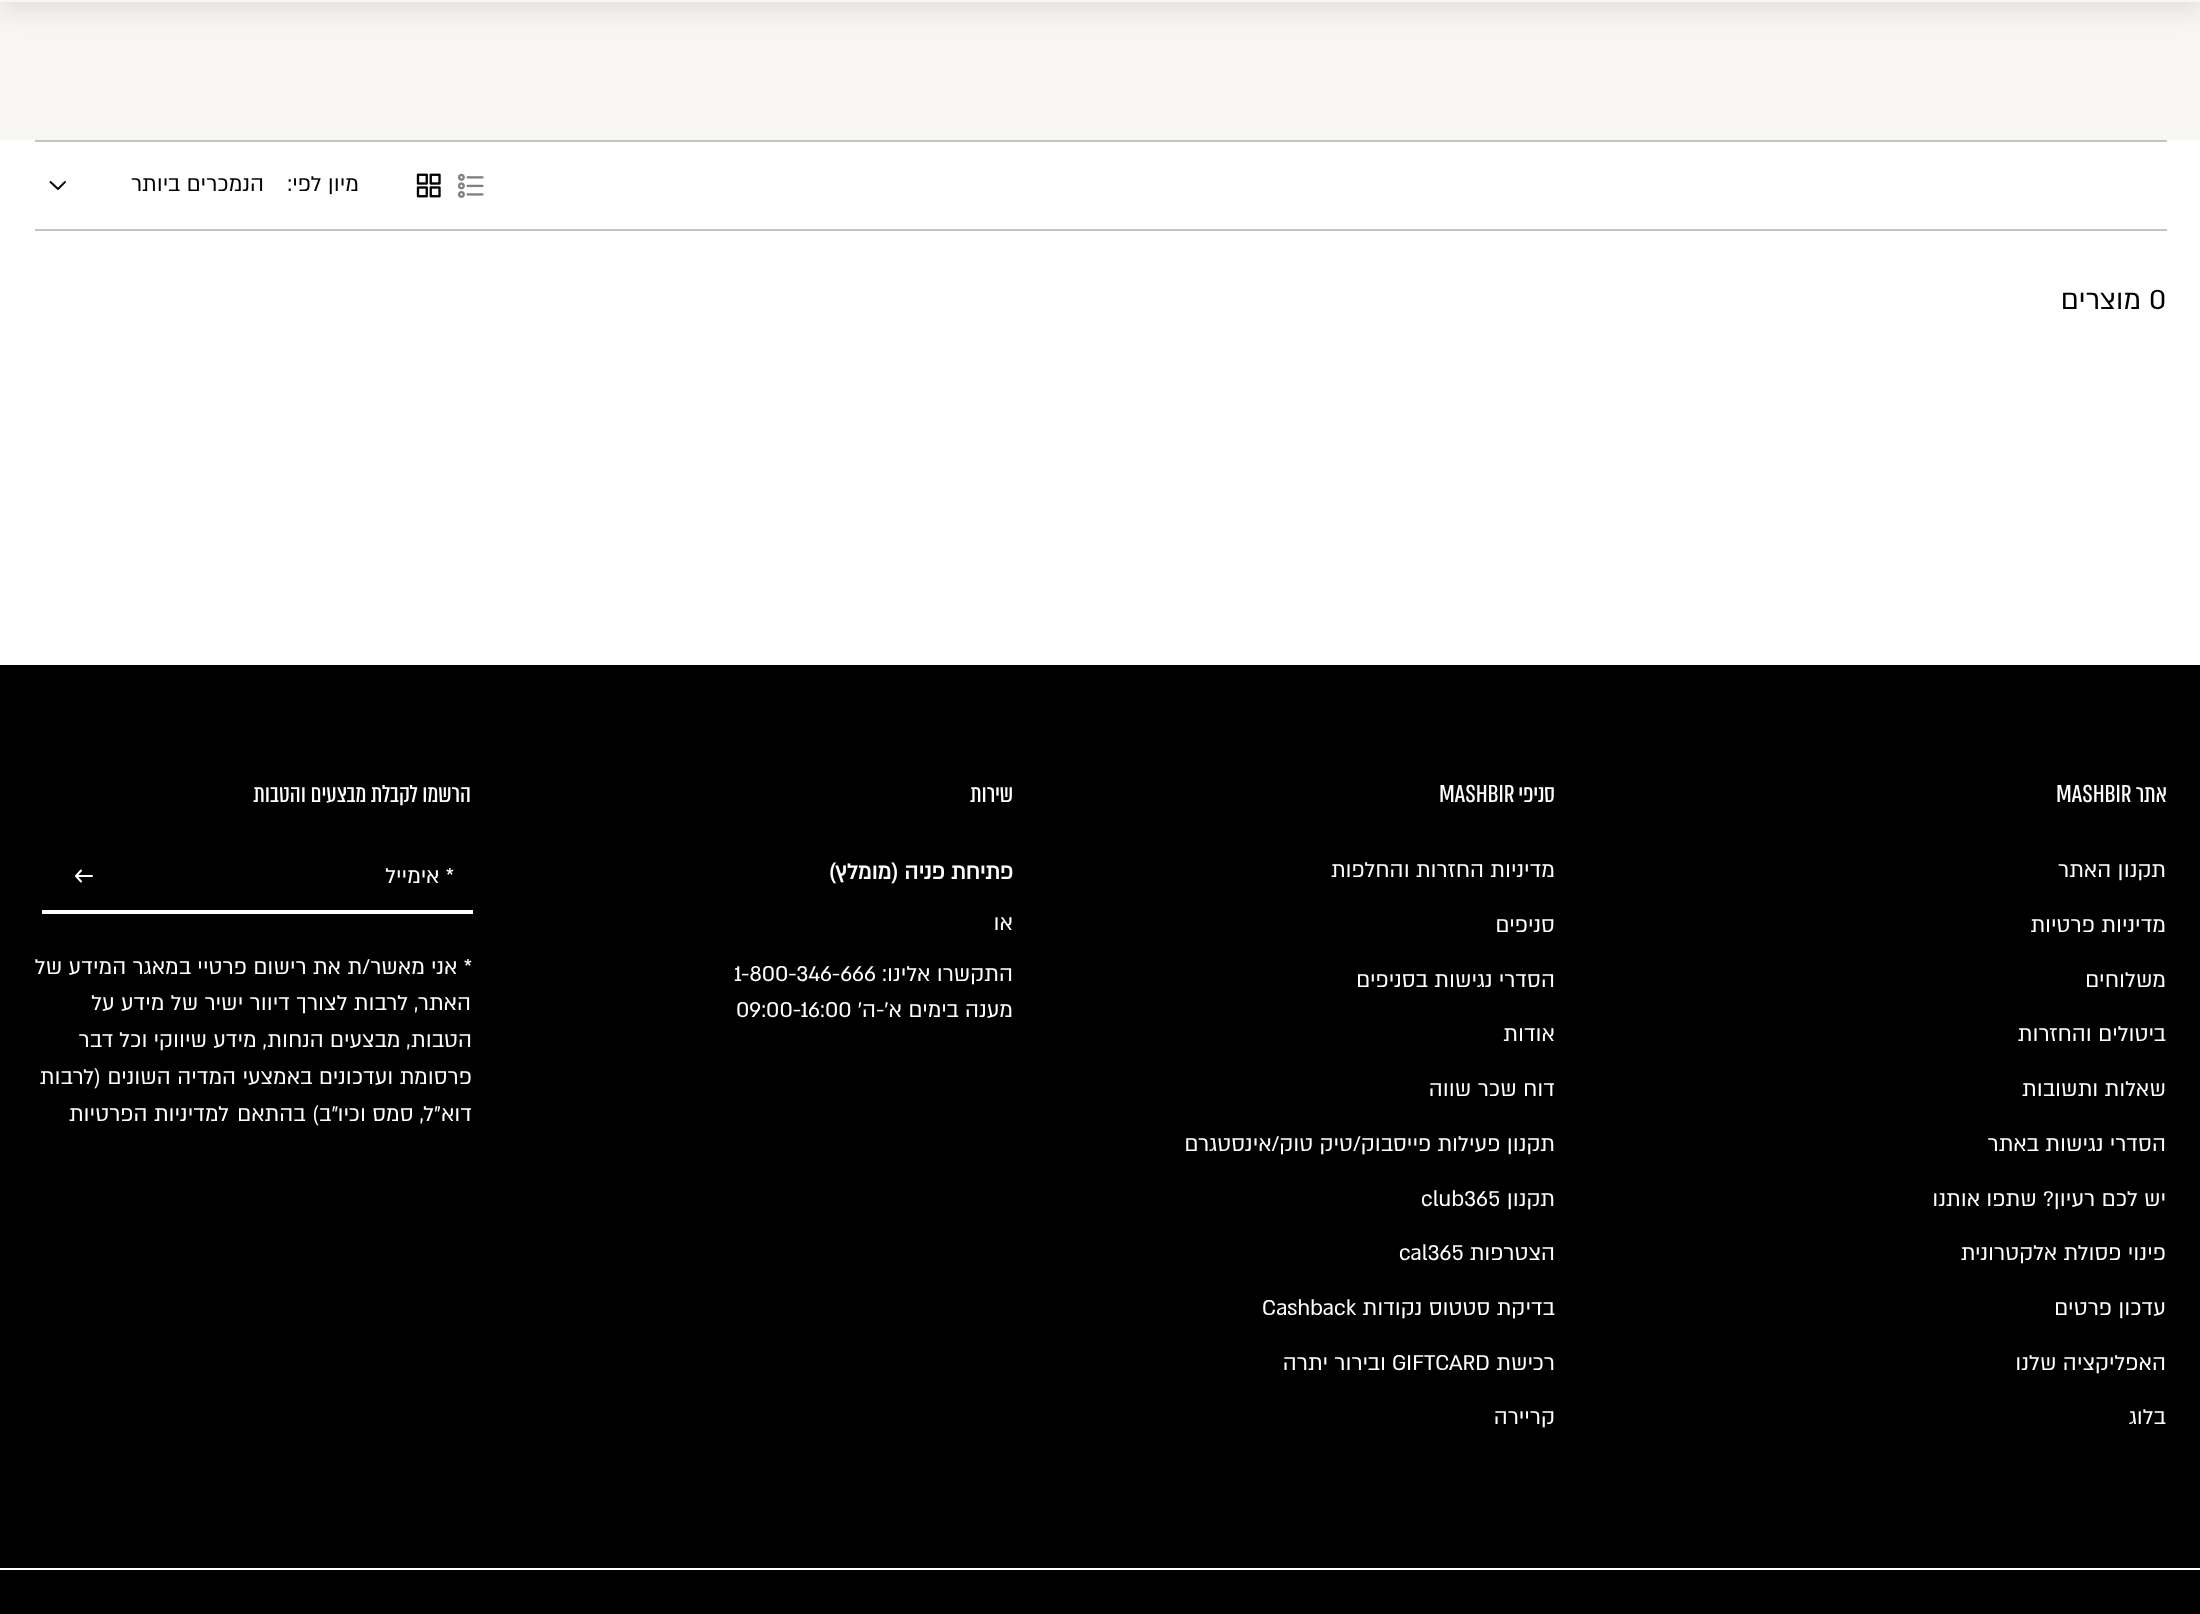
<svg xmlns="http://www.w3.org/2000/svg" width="2200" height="1614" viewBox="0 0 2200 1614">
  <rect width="100%" height="100%" fill="#fff"/>
  <path d="M0 2h2200v138H0z" fill="#f7f6f2"/>
  <path d="M0 -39h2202v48H0z" fill="#0000001a" filter="blur(13px)"/>
  <path d="M0 0h2200v2H0z" fill="#f7f6f2"/>
  <path d="M35 140h2132v2H35z" fill="#c3c3c3"/>
  <path d="M35 229h2132v2H35z" fill="#c3c3c3"/>
  <image x="458" y="173" width="26" height="25" href="img/1.png"/>
  <image x="416" y="173" width="25" height="25" href="img/2.png"/>
  <path d="M50.5 182L58 189L65 182" fill="none" stroke="#000" stroke-width="1.9" stroke-linecap="round" stroke-linejoin="round"/>
  <path d="M0 665h2200v949H0z" fill="#000"/>
  <path d="M0 1568h2200v2H0z" fill="#fff"/>
  <path d="M42 910h431v4H42z" fill="#fff"/>
  <path d="M81 870.5L76 876L81 881.5M92 876H77" fill="none" stroke="#fff" stroke-width="2" stroke-linecap="round" stroke-linejoin="round"/>
  <g font-family="'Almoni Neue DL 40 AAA'" font-size="24.5" direction="rtl" fill="#000">
    <text x="359" y="191">מיון לפי:</text>
    <text x="264" y="191">הנמכרים ביותר</text>
  </g>
  <text x="2149" y="309" font-family="'Almoni Neue DL 40 AAA'" font-size="31.5" fill="#000">0</text>
  <text x="2141" y="309" font-family="'Almoni Neue DL 40 AAA'" font-size="31.5" direction="rtl" fill="#000">מוצרים</text>
  <text x="2167" y="802" font-family="'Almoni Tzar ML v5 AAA'" font-size="28.25" direction="rtl" fill="#fff">אתר</text>
  <text x="2056" y="802" font-family="'Almoni Tzar ML v5 AAA'" font-size="28.25" fill="#fff">MASHBIR</text>
  <g font-family="'Almoni Neue DL 40 AAA'" font-size="24.5" direction="rtl" fill="#fff">
    <text x="2166" y="877">תקנון האתר</text>
    <text x="2166" y="932">מדיניות פרטיות</text>
    <text x="2166" y="987">משלוחים</text>
    <text x="2166" y="1041">ביטולים והחזרות</text>
    <text x="2166" y="1096">שאלות ותשובות</text>
    <text x="2166" y="1151">הסדרי נגישות באתר</text>
    <text x="2166" y="1206">יש לכם רעיון? שתפו אותנו</text>
    <text x="2166" y="1260">פינוי פסולת אלקטרונית</text>
    <text x="2166" y="1315">עדכון פרטים</text>
    <text x="2166" y="1370">האפליקציה שלנו</text>
    <text x="2166" y="1424">בלוג</text>
  </g>
  <text x="1555" y="802" font-family="'Almoni Tzar ML v5 AAA'" font-size="28.25" direction="rtl" fill="#fff">סניפי</text>
  <text x="1439" y="802" font-family="'Almoni Tzar ML v5 AAA'" font-size="28.25" fill="#fff">MASHBIR</text>
  <g font-family="'Almoni Neue DL 40 AAA'" font-size="24.5" direction="rtl" fill="#fff">
    <text x="1555" y="877">מדיניות החזרות והחלפות</text>
    <text x="1555" y="932">סניפים</text>
    <text x="1555" y="987">הסדרי נגישות בסניפים</text>
    <text x="1555" y="1041">אודות</text>
    <text x="1555" y="1096">דוח שכר שווה</text>
    <text x="1555" y="1151">תקנון פעילות פייסבוק/טיק טוק/אינסטגרם</text>
    <text x="1555" y="1206">תקנון</text>
  </g>
  <text x="1421" y="1206" font-family="'Almoni Neue DL 40 AAA'" font-size="24.5" fill="#fff">club365</text>
  <text x="1555" y="1260" font-family="'Almoni Neue DL 40 AAA'" font-size="24.5" direction="rtl" fill="#fff">הצטרפות</text>
  <text x="1399" y="1260" font-family="'Almoni Neue DL 40 AAA'" font-size="24.5" fill="#fff">cal365</text>
  <text x="1555" y="1315" font-family="'Almoni Neue DL 40 AAA'" font-size="24.5" direction="rtl" fill="#fff">בדיקת סטטוס נקודות</text>
  <text x="1262" y="1315" font-family="'Almoni Neue DL 40 AAA'" font-size="24.5" fill="#fff">Cashback</text>
  <text x="1555" y="1370" font-family="'Almoni Neue DL 40 AAA'" font-size="24.5" direction="rtl" fill="#fff">רכישת</text>
  <text x="1392" y="1370" font-family="'Almoni Neue DL 40 AAA'" font-size="24.5" fill="#fff">GIFTCARD</text>
  <g font-family="'Almoni Neue DL 40 AAA'" font-size="24.5" direction="rtl" fill="#fff">
    <text x="1386" y="1370">ובירור יתרה</text>
    <text x="1555" y="1424">קריירה</text>
  </g>
  <text x="1013" y="802" font-family="'Almoni Tzar ML v5 AAA'" font-size="28.25" direction="rtl" fill="#fff">שירות</text>
  <text x="1013" y="879" font-family="'Almoni Neue DL 40 AAA'" font-size="24.5" font-weight="bold" direction="rtl" fill="#fff">פתיחת פניה (מומלץ)</text>
  <g font-family="'Almoni Neue DL 40 AAA'" font-size="24.5" direction="rtl" fill="#fff">
    <text x="1013" y="930">או</text>
    <text x="1013" y="981">התקשרו אלינו:</text>
  </g>
  <text x="734" y="981" font-family="'Almoni Neue DL 40 AAA'" font-size="24.5" fill="#fff">1-800-346-666</text>
  <text x="1013" y="1017" font-family="'Almoni Neue DL 40 AAA'" font-size="24.5" direction="rtl" fill="#fff">מענה בימים א'-ה'</text>
  <text x="736" y="1017" font-family="'Almoni Neue DL 40 AAA'" font-size="24.5" fill="#fff">09:00-16:00</text>
  <text x="471" y="802" font-family="'Almoni Tzar ML v5 AAA'" font-size="28.25" direction="rtl" fill="#fff">הרשמו לקבלת מבצעים והטבות</text>
  <g font-family="'Almoni Neue DL 40 AAA'" font-size="24.5" direction="rtl" fill="#fff">
    <text x="454" y="883">* אימייל</text>
    <text x="472" y="974">* אני מאשר/ת</text>
    <text x="341" y="974">את רישום פרטיי במאגר המידע של</text>
    <text x="471" y="1010">האתר, לרבות לצורך דיוור ישיר של מידע על</text>
    <text x="472" y="1047" word-spacing="-0.25">הטבות, מבצעים הנחות, מידע שיווקי וכל דבר</text>
    <text x="472" y="1084">פרסומת ועדכונים באמצעי המדיה השונים (לרבות</text>
    <text x="472" y="1121">דוא"ל, סמס וכיו"ב) בהתאם</text>
    <text x="229" y="1121">למדיניות הפרטיות</text>
  </g>
</svg>
